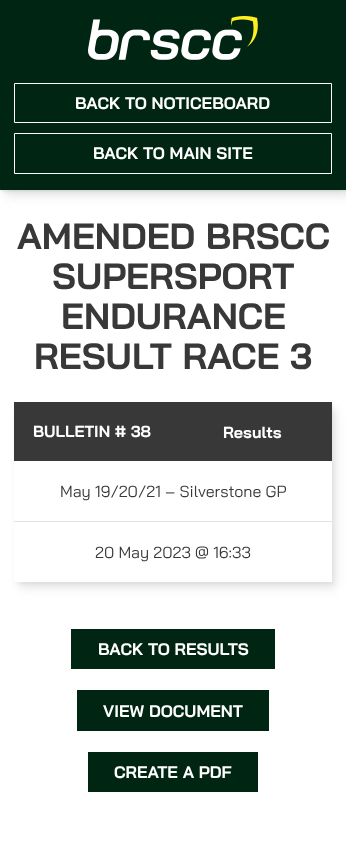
<svg xmlns="http://www.w3.org/2000/svg" width="346" height="855" viewBox="0 0 346 855">
  <defs>
    <clipPath id="clip1"><path d="M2 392H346V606H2ZM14 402H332V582H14Z" clip-rule="evenodd"/></clipPath>
    <clipPath id="clip2"><path d="M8 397H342V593H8ZM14 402H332V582H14Z" clip-rule="evenodd"/></clipPath>
  </defs>
  <rect width="100%" height="100%" fill="#fff"/>
  <path d="M6 8h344v188H6z" fill="#b5b5b552" filter="blur(5.5px)"/>
  <path d="M3 4h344v188H3z" fill="#b5b5b545" filter="blur(2.5px)"/>
  <path d="M1 2h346v189H1z" fill="#b5b5b536" filter="blur(1px)"/>
  <path d="M0 0h346v190H0z" fill="#002512"/>
  <image x="88" y="16" width="170" height="44" href="img/1.png"/>
  <path d="M14.5 83.5h317v39H14.5z" fill="none" stroke="#fff"/>
  <path d="M14.5 133.5h317v40H14.5z" fill="none" stroke="#fff"/>
  <g clip-path="url(#clip1)">
    <path d="M20 410h316v178H20z" fill="#b5b5b552" filter="blur(5.5px)"/>
  </g>
  <g clip-path="url(#clip2)">
    <path d="M17 406h316v178H17z" fill="#b5b5b545" filter="blur(2.5px)"/>
  </g>
  <path d="M14 402h318v59H14z" fill="#383838"/>
  <path d="M14 521h318v1H14z" fill="#e2e2e2"/>
  <path d="M71 629h204v40H71z" fill="#002512"/>
  <path d="M77 690h192v41H77z" fill="#002512"/>
  <path d="M88 752h170v40H88z" fill="#002512"/>
  <g font-family="Bai Jamjuree" font-size="16.75" font-weight="bold" fill="#fff">
    <text x="75" y="109">BACK TO NOTICEBOARD</text>
    <text x="93" y="159">BACK TO MAIN SITE</text>
  </g>
  <g font-family="Bai Jamjuree" font-size="36.5" font-weight="bold" fill="#383838">
    <text x="17" y="249">AMENDED BRSCC</text>
    <text x="52" y="289">SUPERSPORT</text>
    <text x="61" y="329">ENDURANCE</text>
    <text x="34" y="369">RESULT RACE 3</text>
  </g>
  <g font-family="Bai Jamjuree" font-size="16" font-weight="bold" fill="#fff">
    <text x="33" y="437">BULLETIN # 38</text>
    <text x="223" y="438">Results</text>
  </g>
  <g font-family="Bai Jamjuree" font-size="16" fill="#383838">
    <text x="60" y="497">May 19/20/21 – Silverstone GP</text>
    <text x="95" y="558">20 May 2023 @ 16:33</text>
  </g>
  <g font-family="Bai Jamjuree" font-size="16.75" font-weight="bold" fill="#fff">
    <text x="98" y="655">BACK TO RESULTS</text>
    <text x="103" y="717">VIEW DOCUMENT</text>
    <text x="114" y="778">CREATE A PDF</text>
  </g>
</svg>
